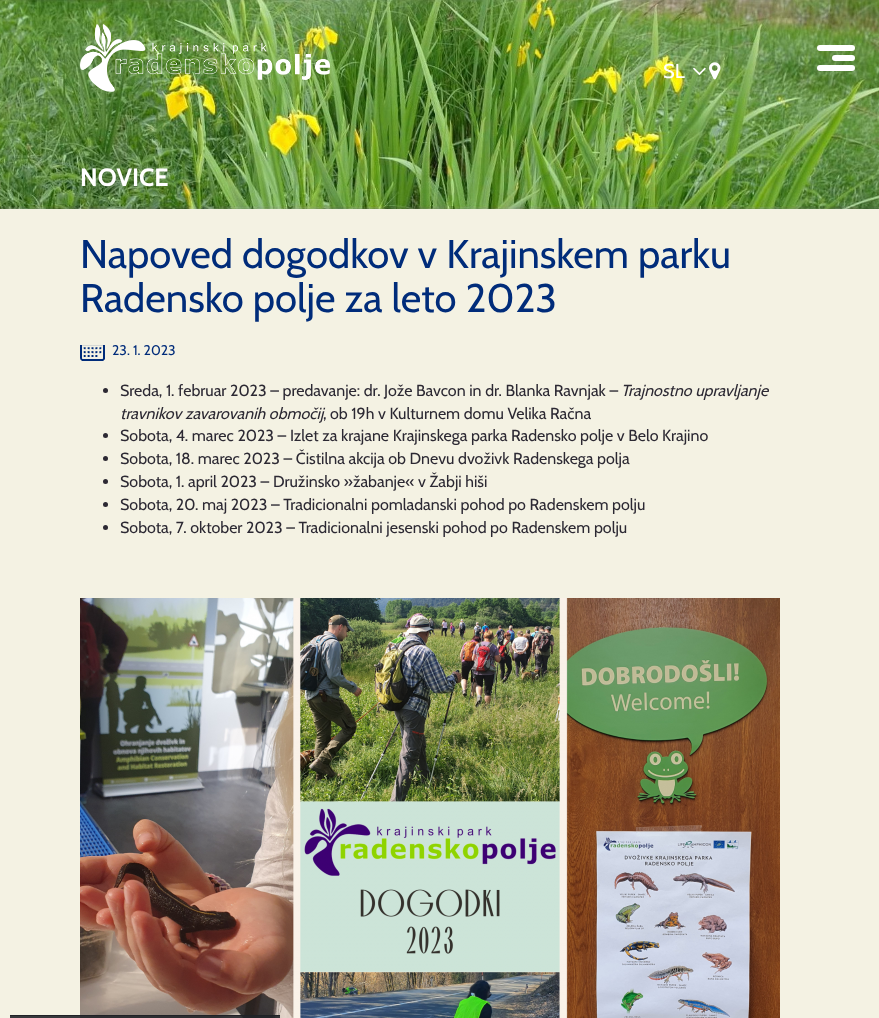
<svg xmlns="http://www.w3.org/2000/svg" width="879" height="1018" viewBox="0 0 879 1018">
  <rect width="100%" height="100%" fill="#f4f2e3"/>
  <image x="0" y="0" width="879" height="209" href="img/4.png"/>
  <image x="80" y="24" width="250" height="68" href="img/1.png"/>
  <image x="693" y="67" width="13" height="9" href="img/2.png"/>
  <image x="709" y="62" width="12" height="18" href="img/3.png"/>
  <rect x="817" y="45" width="38" height="6" rx="3" fill="#fff"/>
  <rect x="832" y="55" width="23" height="6" rx="3" fill="#fff"/>
  <rect x="817" y="65" width="38" height="6" rx="3" fill="#fff"/>
  <image x="80" y="345" width="25" height="16" href="img/5.png"/>
  <circle cx="105.5" cy="390.5" r="2.5" fill="#2c2933"/>
  <circle cx="105.5" cy="435.5" r="2.5" fill="#2c2933"/>
  <circle cx="105.5" cy="458.5" r="2.5" fill="#2c2933"/>
  <circle cx="105.5" cy="481.5" r="2.5" fill="#2c2933"/>
  <circle cx="105.5" cy="504.5" r="2.5" fill="#2c2933"/>
  <circle cx="105.5" cy="527.5" r="2.5" fill="#2c2933"/>
  <image x="80" y="598" width="700" height="420" href="img/6.png"/>
  <path d="M10 1016h270v2H10z" fill="#323a4580"/>
  <path d="M10 1015h270v1H10z" fill="#202226"/>
  <path d="M10 1016h270v2H10z" fill="#202226cc"/>
  <text x="663" y="78" font-family="Cabin" font-size="20" fill="#fff">SL</text>
  <text x="80" y="186" font-family="Cabin" font-size="25" font-weight="bold" fill="#fff">NOVICE</text>
  <g font-family="Cabin" font-size="40" fill="#002c7a">
    <text x="80" y="268">Napoved dogodkov v Krajinskem parku</text>
    <text x="80" y="312">Radensko polje za leto 2023</text>
  </g>
  <text x="112" y="355" font-family="Cabin" font-size="14" fill="#002c7a">23. 1. 2023</text>
  <text x="120" y="396" font-family="Cabin" font-size="16" fill="#2c2933">Sreda, 1. februar 2023 – predavanje: dr. Jože Bavcon in dr. Blanka Ravnjak –</text>
  <g font-family="Cabin" font-size="16" font-style="italic" fill="#2c2933">
    <text x="621" y="396">Trajnostno upravljanje</text>
    <text x="120" y="419">travnikov zavarovanih območij</text>
  </g>
  <g font-family="Cabin" font-size="16" fill="#2c2933">
    <text x="323" y="419">, ob 19h v Kulturnem domu Velika Račna</text>
    <text x="120" y="441">Sobota, 4. marec 2023 – Izlet za krajane Krajinskega parka Radensko polje v Belo Krajino</text>
    <text x="120" y="464">Sobota, 18. marec 2023 – Čistilna akcija ob Dnevu dvoživk Radenskega polja</text>
    <text x="120" y="487">Sobota, 1. april 2023 – Družinsko »žabanje« v Žabji hiši</text>
    <text x="120" y="510">Sobota, 20. maj 2023 – Tradicionalni pomladanski pohod po Radenskem polju</text>
    <text x="120" y="533">Sobota, 7. oktober 2023 – Tradicionalni jesenski pohod po Radenskem polju</text>
  </g>
</svg>
